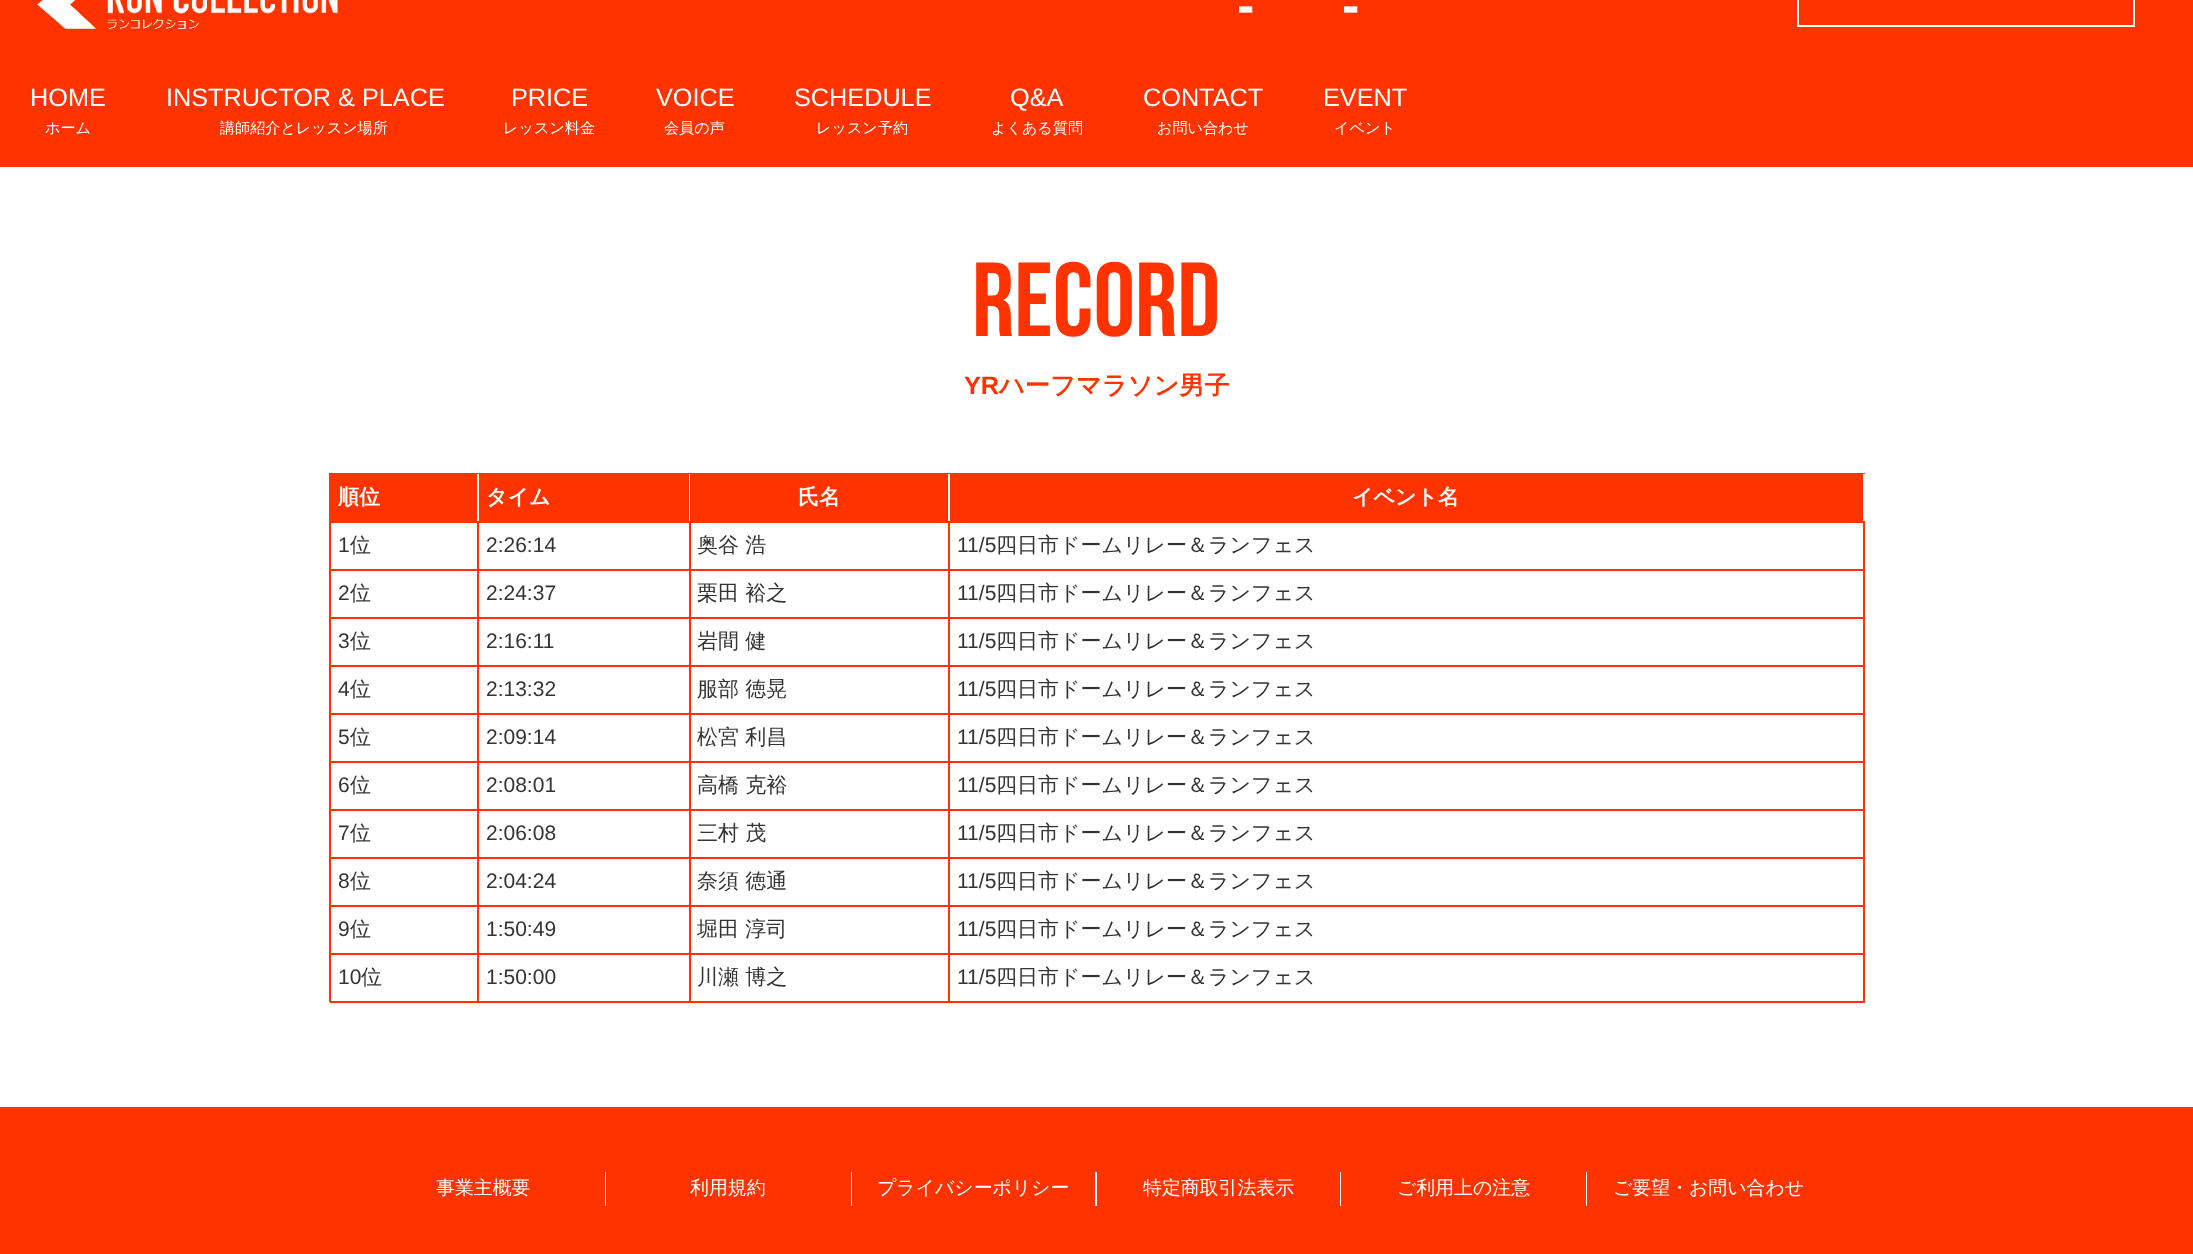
<svg xmlns="http://www.w3.org/2000/svg" width="2193" height="1254" viewBox="0 0 2193 1254">
  <rect width="100%" height="100%" fill="#fff"/>
  <path d="M0 0h2193v167H0z" fill="#fe3300"/>
  <image x="37" y="0" width="301" height="29" href="img/1.png"/>
  <path d="M1798 -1h336v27H1798z" fill="none" stroke="#fff" stroke-width="2"/>
  <path d="M329 473h1536v1H329z" fill="#f30"/>
  <path d="M329 473h2v529H329z" fill="#f30"/>
  <path d="M331 474h146v47H331z" fill="#f30"/>
  <path d="M330 521h1535v2H330z" fill="#f30"/>
  <path d="M479 474h210v47H479z" fill="#f30"/>
  <path d="M690 474h258v47H690z" fill="#f30"/>
  <path d="M950 474h913v47H950z" fill="#f30"/>
  <path d="M477 522h2v48H477z" fill="#f30"/>
  <path d="M330 569h149v2H330z" fill="#f30"/>
  <path d="M689 522h2v48H689z" fill="#f30"/>
  <path d="M479 569h211v2H479z" fill="#f30"/>
  <path d="M948 522h2v48H948z" fill="#f30"/>
  <path d="M690 569h260v2H690z" fill="#f30"/>
  <path d="M1863 522h2v48H1863z" fill="#f30"/>
  <path d="M950 569h915v2H950z" fill="#f30"/>
  <path d="M477 570h2v48H477z" fill="#f30"/>
  <path d="M330 617h149v2H330z" fill="#f30"/>
  <path d="M689 570h2v48H689z" fill="#f30"/>
  <path d="M479 617h211v2H479z" fill="#f30"/>
  <path d="M948 570h2v48H948z" fill="#f30"/>
  <path d="M690 617h260v2H690z" fill="#f30"/>
  <path d="M1863 570h2v48H1863z" fill="#f30"/>
  <path d="M950 617h915v2H950z" fill="#f30"/>
  <path d="M477 618h2v48H477z" fill="#f30"/>
  <path d="M330 665h149v2H330z" fill="#f30"/>
  <path d="M689 618h2v48H689z" fill="#f30"/>
  <path d="M479 665h211v2H479z" fill="#f30"/>
  <path d="M948 618h2v48H948z" fill="#f30"/>
  <path d="M690 665h260v2H690z" fill="#f30"/>
  <path d="M1863 618h2v48H1863z" fill="#f30"/>
  <path d="M950 665h915v2H950z" fill="#f30"/>
  <path d="M477 666h2v48H477z" fill="#f30"/>
  <path d="M330 713h149v2H330z" fill="#f30"/>
  <path d="M689 666h2v48H689z" fill="#f30"/>
  <path d="M479 713h211v2H479z" fill="#f30"/>
  <path d="M948 666h2v48H948z" fill="#f30"/>
  <path d="M690 713h260v2H690z" fill="#f30"/>
  <path d="M1863 666h2v48H1863z" fill="#f30"/>
  <path d="M950 713h915v2H950z" fill="#f30"/>
  <path d="M477 714h2v48H477z" fill="#f30"/>
  <path d="M330 761h149v2H330z" fill="#f30"/>
  <path d="M689 714h2v48H689z" fill="#f30"/>
  <path d="M479 761h211v2H479z" fill="#f30"/>
  <path d="M948 714h2v48H948z" fill="#f30"/>
  <path d="M690 761h260v2H690z" fill="#f30"/>
  <path d="M1863 714h2v48H1863z" fill="#f30"/>
  <path d="M950 761h915v2H950z" fill="#f30"/>
  <path d="M477 762h2v48H477z" fill="#f30"/>
  <path d="M330 809h149v2H330z" fill="#f30"/>
  <path d="M689 762h2v48H689z" fill="#f30"/>
  <path d="M479 809h211v2H479z" fill="#f30"/>
  <path d="M948 762h2v48H948z" fill="#f30"/>
  <path d="M690 809h260v2H690z" fill="#f30"/>
  <path d="M1863 762h2v48H1863z" fill="#f30"/>
  <path d="M950 809h915v2H950z" fill="#f30"/>
  <path d="M477 810h2v48H477z" fill="#f30"/>
  <path d="M330 857h149v2H330z" fill="#f30"/>
  <path d="M689 810h2v48H689z" fill="#f30"/>
  <path d="M479 857h211v2H479z" fill="#f30"/>
  <path d="M948 810h2v48H948z" fill="#f30"/>
  <path d="M690 857h260v2H690z" fill="#f30"/>
  <path d="M1863 810h2v48H1863z" fill="#f30"/>
  <path d="M950 857h915v2H950z" fill="#f30"/>
  <path d="M477 858h2v48H477z" fill="#f30"/>
  <path d="M330 905h149v2H330z" fill="#f30"/>
  <path d="M689 858h2v48H689z" fill="#f30"/>
  <path d="M479 905h211v2H479z" fill="#f30"/>
  <path d="M948 858h2v48H948z" fill="#f30"/>
  <path d="M690 905h260v2H690z" fill="#f30"/>
  <path d="M1863 858h2v48H1863z" fill="#f30"/>
  <path d="M950 905h915v2H950z" fill="#f30"/>
  <path d="M477 906h2v48H477z" fill="#f30"/>
  <path d="M330 953h149v2H330z" fill="#f30"/>
  <path d="M689 906h2v48H689z" fill="#f30"/>
  <path d="M479 953h211v2H479z" fill="#f30"/>
  <path d="M948 906h2v48H948z" fill="#f30"/>
  <path d="M690 953h260v2H690z" fill="#f30"/>
  <path d="M1863 906h2v48H1863z" fill="#f30"/>
  <path d="M950 953h915v2H950z" fill="#f30"/>
  <path d="M477 954h2v48H477z" fill="#f30"/>
  <path d="M330 1001h149v2H330z" fill="#f30"/>
  <path d="M689 954h2v48H689z" fill="#f30"/>
  <path d="M479 1001h211v2H479z" fill="#f30"/>
  <path d="M948 954h2v48H948z" fill="#f30"/>
  <path d="M690 1001h260v2H690z" fill="#f30"/>
  <path d="M1863 954h2v48H1863z" fill="#f30"/>
  <path d="M950 1001h915v2H950z" fill="#f30"/>
  <path d="M0 1107h2193v147H0z" fill="#f30"/>
  <path d="M605 1172h1v34H605z" fill="#fff"/>
  <path d="M851 1172h1v34H851z" fill="#fff"/>
  <path d="M1095 1172h2v34H1095z" fill="#fff"/>
  <path d="M1340 1172h1v34H1340z" fill="#fff"/>
  <path d="M1586 1172h1v34H1586z" fill="#fff"/>
  <g font-family="Liberation Sans" font-size="52" font-weight="bold" fill="#fff">
    <text x="1237" y="23">-</text>
    <text x="1342" y="23">-</text>
  </g>
  <text x="30" y="106" font-family="Liberation Sans" font-size="25.25" fill="#fff">HOME</text>
  <text x="45" y="133" font-family="WenQuanYi Zen Hei" font-size="15.1" font-weight="500" fill="#fff">ホーム</text>
  <text x="166" y="106" font-family="Liberation Sans" font-size="25.25" fill="#fff">INSTRUCTOR &amp; PLACE</text>
  <text x="220" y="133" font-family="WenQuanYi Zen Hei" font-size="15.1" font-weight="500" fill="#fff">講師紹介とレッスン場所</text>
  <text x="511" y="106" font-family="Liberation Sans" font-size="25.25" fill="#fff">PRICE</text>
  <text x="503" y="133" font-family="WenQuanYi Zen Hei" font-size="15.1" font-weight="500" fill="#fff">レッスン料金</text>
  <text x="656" y="106" font-family="Liberation Sans" font-size="25.25" fill="#fff">VOICE</text>
  <text x="664" y="133" font-family="WenQuanYi Zen Hei" font-size="15.1" font-weight="500" fill="#fff">会員の声</text>
  <text x="794" y="106" font-family="Liberation Sans" font-size="25.25" fill="#fff">SCHEDULE</text>
  <text x="816" y="133" font-family="WenQuanYi Zen Hei" font-size="15.1" font-weight="500" fill="#fff">レッスン予約</text>
  <text x="1010" y="106" font-family="Liberation Sans" font-size="25.25" fill="#fff">Q&amp;A</text>
  <text x="991" y="133" font-family="WenQuanYi Zen Hei" font-size="15.1" font-weight="500" fill="#fff">よくある質問</text>
  <text x="1143" y="106" font-family="Liberation Sans" font-size="25.25" fill="#fff">CONTACT</text>
  <text x="1157" y="133" font-family="WenQuanYi Zen Hei" font-size="15.1" font-weight="500" fill="#fff">お問い合わせ</text>
  <text x="1323" y="106" font-family="Liberation Sans" font-size="25.25" fill="#fff">EVENT</text>
  <text x="1334" y="133" font-family="WenQuanYi Zen Hei" font-size="15.1" font-weight="500" fill="#fff">イベント</text>
  <text x="972" y="336" font-family="Bebas Neue" font-size="105" fill="#fe3300">RECORD</text>
  <text x="964" y="394" font-family="Liberation Sans" font-size="25.25" font-weight="bold" fill="#fe3300">YR</text>
  <text x="999" y="394" font-family="WenQuanYi Zen Hei" font-size="25.25" font-weight="bold" fill="#fe3300">ハーフマラソン男子</text>
  <g font-family="WenQuanYi Zen Hei" font-size="21" font-weight="bold" fill="#fff">
    <text x="338" y="504">順位</text>
    <text x="486" y="504">タイム</text>
    <text x="798" y="504">氏名</text>
    <text x="1352" y="504">イベント名</text>
  </g>
  <text x="338" y="552" font-family="Liberation Sans" font-size="21" fill="#333">1</text>
  <text x="350" y="552" font-family="WenQuanYi Zen Hei" font-size="21" font-weight="500" fill="#333">位</text>
  <text x="486" y="552" font-family="Liberation Sans" font-size="21" fill="#333">2:26:14</text>
  <text x="697" y="552" font-family="WenQuanYi Zen Hei" font-size="21" font-weight="500" fill="#333">奥谷 浩</text>
  <text x="957" y="552" font-family="Liberation Sans" font-size="21" fill="#333">11/5</text>
  <text x="996" y="552" font-family="WenQuanYi Zen Hei" font-size="21" font-weight="500" fill="#333">四日市ドームリレー＆ランフェス</text>
  <text x="338" y="600" font-family="Liberation Sans" font-size="21" fill="#333">2</text>
  <text x="350" y="600" font-family="WenQuanYi Zen Hei" font-size="21" font-weight="500" fill="#333">位</text>
  <text x="486" y="600" font-family="Liberation Sans" font-size="21" fill="#333">2:24:37</text>
  <text x="697" y="600" font-family="WenQuanYi Zen Hei" font-size="21" font-weight="500" fill="#333">栗田 裕之</text>
  <text x="957" y="600" font-family="Liberation Sans" font-size="21" fill="#333">11/5</text>
  <text x="996" y="600" font-family="WenQuanYi Zen Hei" font-size="21" font-weight="500" fill="#333">四日市ドームリレー＆ランフェス</text>
  <text x="338" y="648" font-family="Liberation Sans" font-size="21" fill="#333">3</text>
  <text x="350" y="648" font-family="WenQuanYi Zen Hei" font-size="21" font-weight="500" fill="#333">位</text>
  <text x="486" y="648" font-family="Liberation Sans" font-size="21" fill="#333">2:16:11</text>
  <text x="697" y="648" font-family="WenQuanYi Zen Hei" font-size="21" font-weight="500" fill="#333">岩間 健</text>
  <text x="957" y="648" font-family="Liberation Sans" font-size="21" fill="#333">11/5</text>
  <text x="996" y="648" font-family="WenQuanYi Zen Hei" font-size="21" font-weight="500" fill="#333">四日市ドームリレー＆ランフェス</text>
  <text x="338" y="696" font-family="Liberation Sans" font-size="21" fill="#333">4</text>
  <text x="350" y="696" font-family="WenQuanYi Zen Hei" font-size="21" font-weight="500" fill="#333">位</text>
  <text x="486" y="696" font-family="Liberation Sans" font-size="21" fill="#333">2:13:32</text>
  <text x="697" y="696" font-family="WenQuanYi Zen Hei" font-size="21" font-weight="500" fill="#333">服部 徳晃</text>
  <text x="957" y="696" font-family="Liberation Sans" font-size="21" fill="#333">11/5</text>
  <text x="996" y="696" font-family="WenQuanYi Zen Hei" font-size="21" font-weight="500" fill="#333">四日市ドームリレー＆ランフェス</text>
  <text x="338" y="744" font-family="Liberation Sans" font-size="21" fill="#333">5</text>
  <text x="350" y="744" font-family="WenQuanYi Zen Hei" font-size="21" font-weight="500" fill="#333">位</text>
  <text x="486" y="744" font-family="Liberation Sans" font-size="21" fill="#333">2:09:14</text>
  <text x="697" y="744" font-family="WenQuanYi Zen Hei" font-size="21" font-weight="500" fill="#333">松宮 利昌</text>
  <text x="957" y="744" font-family="Liberation Sans" font-size="21" fill="#333">11/5</text>
  <text x="996" y="744" font-family="WenQuanYi Zen Hei" font-size="21" font-weight="500" fill="#333">四日市ドームリレー＆ランフェス</text>
  <text x="338" y="792" font-family="Liberation Sans" font-size="21" fill="#333">6</text>
  <text x="350" y="792" font-family="WenQuanYi Zen Hei" font-size="21" font-weight="500" fill="#333">位</text>
  <text x="486" y="792" font-family="Liberation Sans" font-size="21" fill="#333">2:08:01</text>
  <text x="697" y="792" font-family="WenQuanYi Zen Hei" font-size="21" font-weight="500" fill="#333">高橋 克裕</text>
  <text x="957" y="792" font-family="Liberation Sans" font-size="21" fill="#333">11/5</text>
  <text x="996" y="792" font-family="WenQuanYi Zen Hei" font-size="21" font-weight="500" fill="#333">四日市ドームリレー＆ランフェス</text>
  <text x="338" y="840" font-family="Liberation Sans" font-size="21" fill="#333">7</text>
  <text x="350" y="840" font-family="WenQuanYi Zen Hei" font-size="21" font-weight="500" fill="#333">位</text>
  <text x="486" y="840" font-family="Liberation Sans" font-size="21" fill="#333">2:06:08</text>
  <text x="697" y="840" font-family="WenQuanYi Zen Hei" font-size="21" font-weight="500" fill="#333">三村 茂</text>
  <text x="957" y="840" font-family="Liberation Sans" font-size="21" fill="#333">11/5</text>
  <text x="996" y="840" font-family="WenQuanYi Zen Hei" font-size="21" font-weight="500" fill="#333">四日市ドームリレー＆ランフェス</text>
  <text x="338" y="888" font-family="Liberation Sans" font-size="21" fill="#333">8</text>
  <text x="350" y="888" font-family="WenQuanYi Zen Hei" font-size="21" font-weight="500" fill="#333">位</text>
  <text x="486" y="888" font-family="Liberation Sans" font-size="21" fill="#333">2:04:24</text>
  <text x="697" y="888" font-family="WenQuanYi Zen Hei" font-size="21" font-weight="500" fill="#333">奈須 徳通</text>
  <text x="957" y="888" font-family="Liberation Sans" font-size="21" fill="#333">11/5</text>
  <text x="996" y="888" font-family="WenQuanYi Zen Hei" font-size="21" font-weight="500" fill="#333">四日市ドームリレー＆ランフェス</text>
  <text x="338" y="936" font-family="Liberation Sans" font-size="21" fill="#333">9</text>
  <text x="350" y="936" font-family="WenQuanYi Zen Hei" font-size="21" font-weight="500" fill="#333">位</text>
  <text x="486" y="936" font-family="Liberation Sans" font-size="21" fill="#333">1:50:49</text>
  <text x="697" y="936" font-family="WenQuanYi Zen Hei" font-size="21" font-weight="500" fill="#333">堀田 淳司</text>
  <text x="957" y="936" font-family="Liberation Sans" font-size="21" fill="#333">11/5</text>
  <text x="996" y="936" font-family="WenQuanYi Zen Hei" font-size="21" font-weight="500" fill="#333">四日市ドームリレー＆ランフェス</text>
  <text x="338" y="984" font-family="Liberation Sans" font-size="21" fill="#333">10</text>
  <text x="361" y="984" font-family="WenQuanYi Zen Hei" font-size="21" font-weight="500" fill="#333">位</text>
  <text x="486" y="984" font-family="Liberation Sans" font-size="21" fill="#333">1:50:00</text>
  <text x="697" y="984" font-family="WenQuanYi Zen Hei" font-size="21" font-weight="500" fill="#333">川瀬 博之</text>
  <text x="957" y="984" font-family="Liberation Sans" font-size="21" fill="#333">11/5</text>
  <text x="996" y="984" font-family="WenQuanYi Zen Hei" font-size="21" font-weight="500" fill="#333">四日市ドームリレー＆ランフェス</text>
  <g font-family="WenQuanYi Zen Hei" font-size="18.9" font-weight="500" fill="#fff">
    <text x="436" y="1194">事業主概要</text>
    <text x="690" y="1194">利用規約</text>
    <text x="877" y="1194">プライバシーポリシー</text>
    <text x="1143" y="1194">特定商取引法表示</text>
    <text x="1397" y="1194">ご利用上の注意</text>
    <text x="1613" y="1194">ご要望・お問い合わせ</text>
  </g>
</svg>
